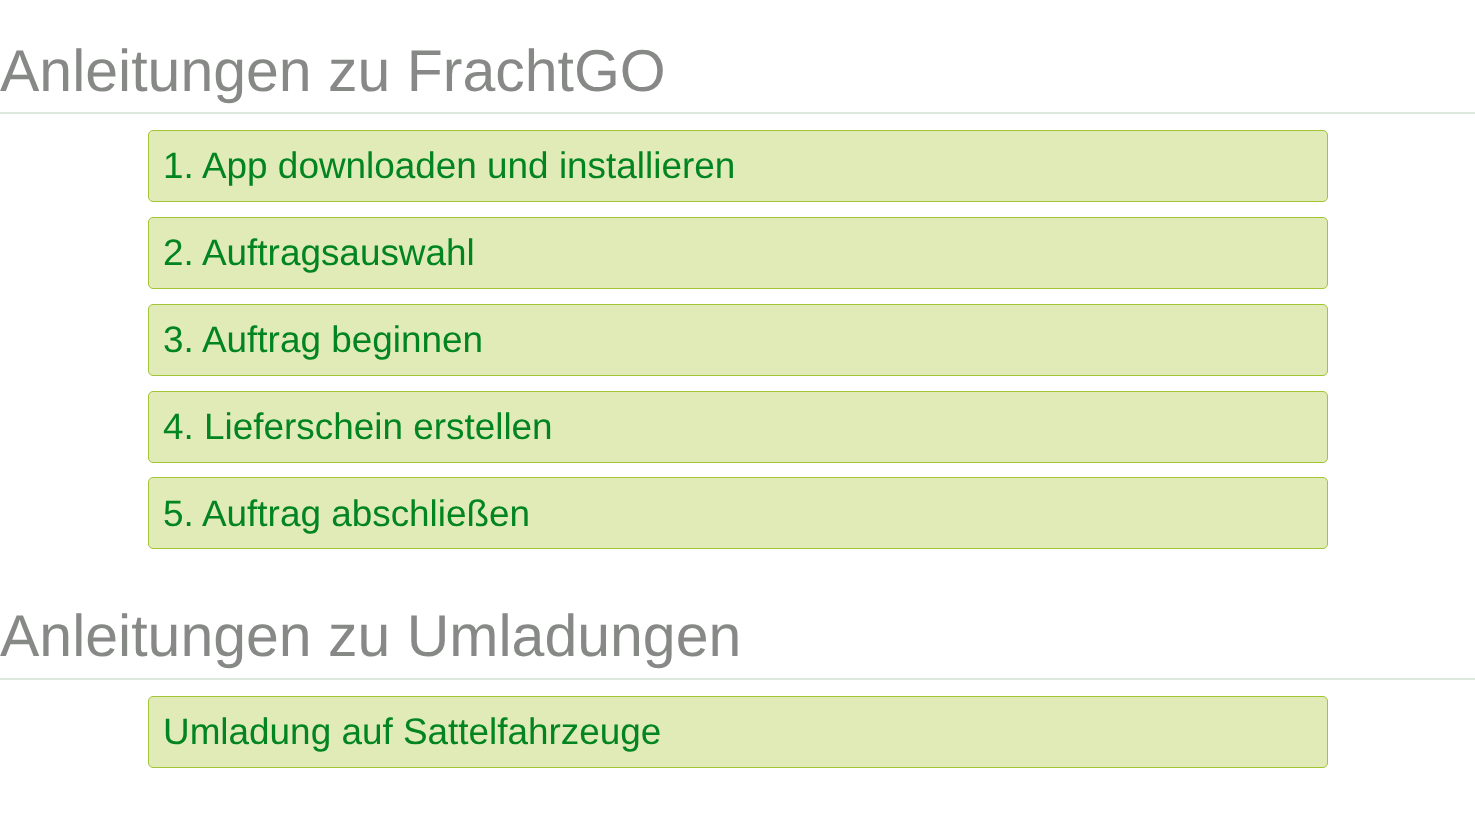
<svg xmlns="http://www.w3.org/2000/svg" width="1475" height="814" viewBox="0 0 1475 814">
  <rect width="100%" height="100%" fill="#fff"/>
  <path d="M0 112h1475v2H0z" fill="#dee9de"/>
  <rect x="148.5" y="130.5" width="1179" height="71" rx="4.5" fill="#e0ebb8" stroke="#a2c535"/>
  <rect x="148.5" y="217.5" width="1179" height="71" rx="4.5" fill="#e0ebb8" stroke="#a2c535"/>
  <rect x="148.5" y="304.5" width="1179" height="71" rx="4.5" fill="#e0ebb8" stroke="#a2c535"/>
  <rect x="148.5" y="391.5" width="1179" height="71" rx="4.5" fill="#e0ebb8" stroke="#a2c535"/>
  <rect x="148.5" y="477.5" width="1179" height="71" rx="4.5" fill="#e0ebb8" stroke="#a2c535"/>
  <path d="M0 678h1475v2H0z" fill="#dee9de"/>
  <rect x="148.5" y="696.5" width="1179" height="71" rx="4.5" fill="#e0ebb8" stroke="#a2c535"/>
  <text x="0" y="91" font-family="Liberation Sans" font-size="59" fill="#878987">Anleitungen zu FrachtGO</text>
  <g font-family="Liberation Sans" font-size="36.9" fill="#028421">
    <text x="163" y="178">1. App downloaden und installieren</text>
    <text x="163" y="265">2. Auftragsauswahl</text>
    <text x="163" y="352">3. Auftrag beginnen</text>
    <text x="163" y="439">4. Lieferschein erstellen</text>
    <text x="163" y="526">5. Auftrag abschließen</text>
  </g>
  <text x="0" y="656" font-family="Liberation Sans" font-size="59" fill="#878987">Anleitungen zu Umladungen</text>
  <text x="163" y="744" font-family="Liberation Sans" font-size="36.9" fill="#028421">Umladung auf Sattelfahrzeuge</text>
</svg>
